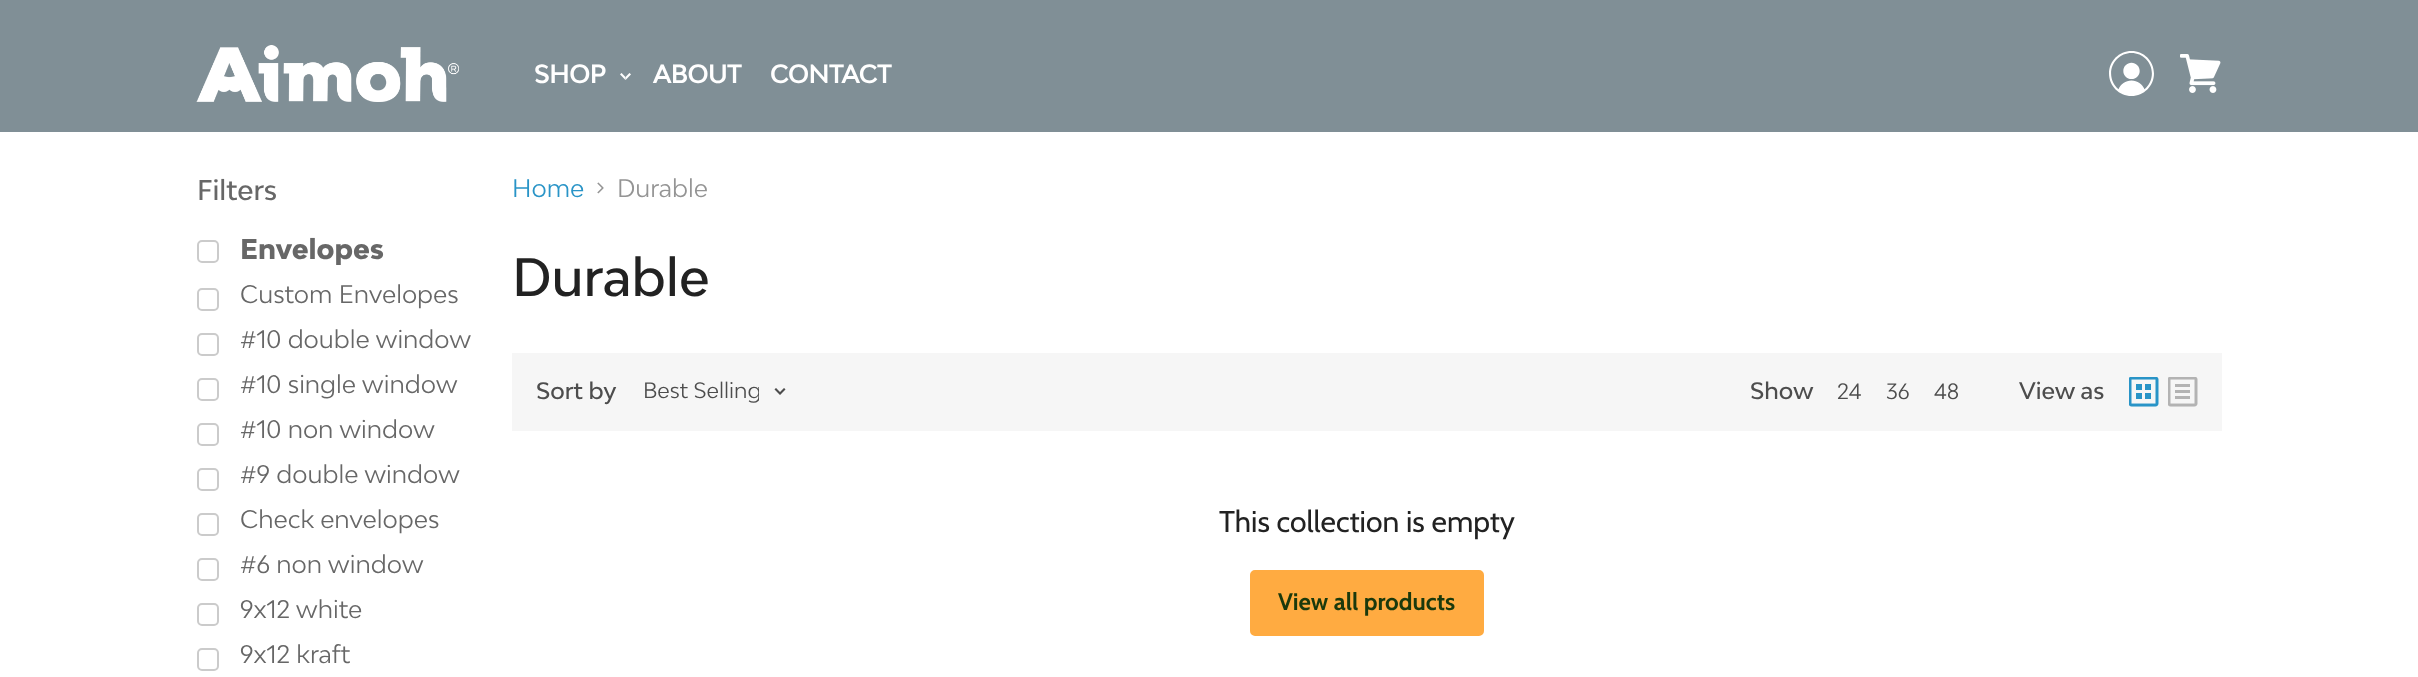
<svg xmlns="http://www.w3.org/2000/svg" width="2418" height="677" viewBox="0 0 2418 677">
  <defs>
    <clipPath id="clip1"><path d="M644 380h115v24H644z"/></clipPath>
  </defs>
  <rect width="100%" height="100%" fill="#fff"/>
  <path d="M0 0h2418v132H0z" fill="#808f96"/>
  <image x="196" y="45" width="263" height="57" href="img/1.png"/>
  <image x="620" y="73" width="11" height="7" href="img/2.png"/>
  <image x="2109" y="51" width="45" height="45" href="img/3.png"/>
  <image x="2180" y="54" width="41" height="39" href="img/4.png"/>
  <rect x="198" y="241" width="20" height="21" rx="4" fill="none" stroke="#cbcbcb" stroke-width="2"/>
  <rect x="198" y="289" width="20" height="21" rx="4" fill="none" stroke="#cbcbcb" stroke-width="2"/>
  <rect x="198" y="334" width="20" height="21" rx="4" fill="none" stroke="#cbcbcb" stroke-width="2"/>
  <rect x="198" y="379" width="20" height="21" rx="4" fill="none" stroke="#cbcbcb" stroke-width="2"/>
  <rect x="198" y="424" width="20" height="21" rx="4" fill="none" stroke="#cbcbcb" stroke-width="2"/>
  <rect x="198" y="469" width="20" height="21" rx="4" fill="none" stroke="#cbcbcb" stroke-width="2"/>
  <rect x="198" y="514" width="20" height="21" rx="4" fill="none" stroke="#cbcbcb" stroke-width="2"/>
  <rect x="198" y="559" width="20" height="21" rx="4" fill="none" stroke="#cbcbcb" stroke-width="2"/>
  <rect x="198" y="604" width="20" height="21" rx="4" fill="none" stroke="#cbcbcb" stroke-width="2"/>
  <rect x="198" y="649" width="20" height="21" rx="4" fill="none" stroke="#cbcbcb" stroke-width="2"/>
  <image x="597" y="182" width="7" height="12" href="img/5.png"/>
  <path d="M512 353h1710v78H512z" fill="#f6f6f6"/>
  <image x="774" y="388" width="12" height="7" href="img/6.png"/>
  <image x="2129" y="377" width="30" height="30" href="img/7.png"/>
  <image x="2168" y="377" width="30" height="30" href="img/8.png"/>
  <rect x="1251" y="571" width="232" height="64" rx="4" fill="#ffab41" stroke="#ffab41" stroke-width="2"/>
  <g font-family="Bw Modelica" font-size="24" font-weight="bold" fill="#fff">
    <text x="534" y="83">SHOP</text>
    <text x="653" y="83">ABOUT</text>
    <text x="770" y="83">CONTACT</text>
  </g>
  <text x="197" y="200" font-family="Bw Modelica" font-size="27" font-weight="500" fill="#676767">Filters</text>
  <text x="240" y="259" font-family="Bw Modelica" font-size="27" font-weight="800" fill="#676767">Envelopes</text>
  <g font-family="Bw Modelica" font-size="24" fill="#676767">
    <text x="240" y="303">Custom Envelopes</text>
    <text x="240" y="348">#10 double window</text>
    <text x="240" y="393">#10 single window</text>
    <text x="240" y="438">#10 non window</text>
    <text x="240" y="483">#9 double window</text>
    <text x="240" y="528">Check envelopes</text>
    <text x="240" y="573">#6 non window</text>
    <text x="240" y="618">9x12 white</text>
    <text x="240" y="663">9x12 kraft</text>
  </g>
  <text x="512" y="197" font-family="Bw Modelica" font-size="24" fill="#2994c7">Home</text>
  <text x="617" y="197" font-family="Bw Modelica" font-size="24" fill="#949494">Durable</text>
  <text x="512" y="296" font-family="Bw Modelica" font-size="51" font-weight="500" fill="#222">Durable</text>
  <text x="536" y="399" font-family="Bw Modelica" font-size="22.5" font-weight="500" fill="#4d4d4d">Sort by</text>
  <g clip-path="url(#clip1)">
    <text x="643" y="398" font-family="Bw Modelica" font-size="21" fill="#4d4d4d">Best Selling</text>
  </g>
  <text x="1750" y="399" font-family="Bw Modelica" font-size="22.5" font-weight="500" fill="#4d4d4d">Show</text>
  <g font-family="Bw Modelica" font-size="21" fill="#4d4d4d">
    <text x="1837" y="399">24</text>
    <text x="1886" y="399">36</text>
    <text x="1934" y="399">48</text>
  </g>
  <text x="2019" y="399" font-family="Bw Modelica" font-size="22.5" font-weight="500" fill="#4d4d4d">View as</text>
  <text x="1219" y="532" font-family="Cabin" font-size="30" fill="#222">This collection is empty</text>
  <text x="1278" y="610" font-family="Cabin" font-size="24" font-weight="bold" fill="#1a390c">View all products</text>
</svg>
